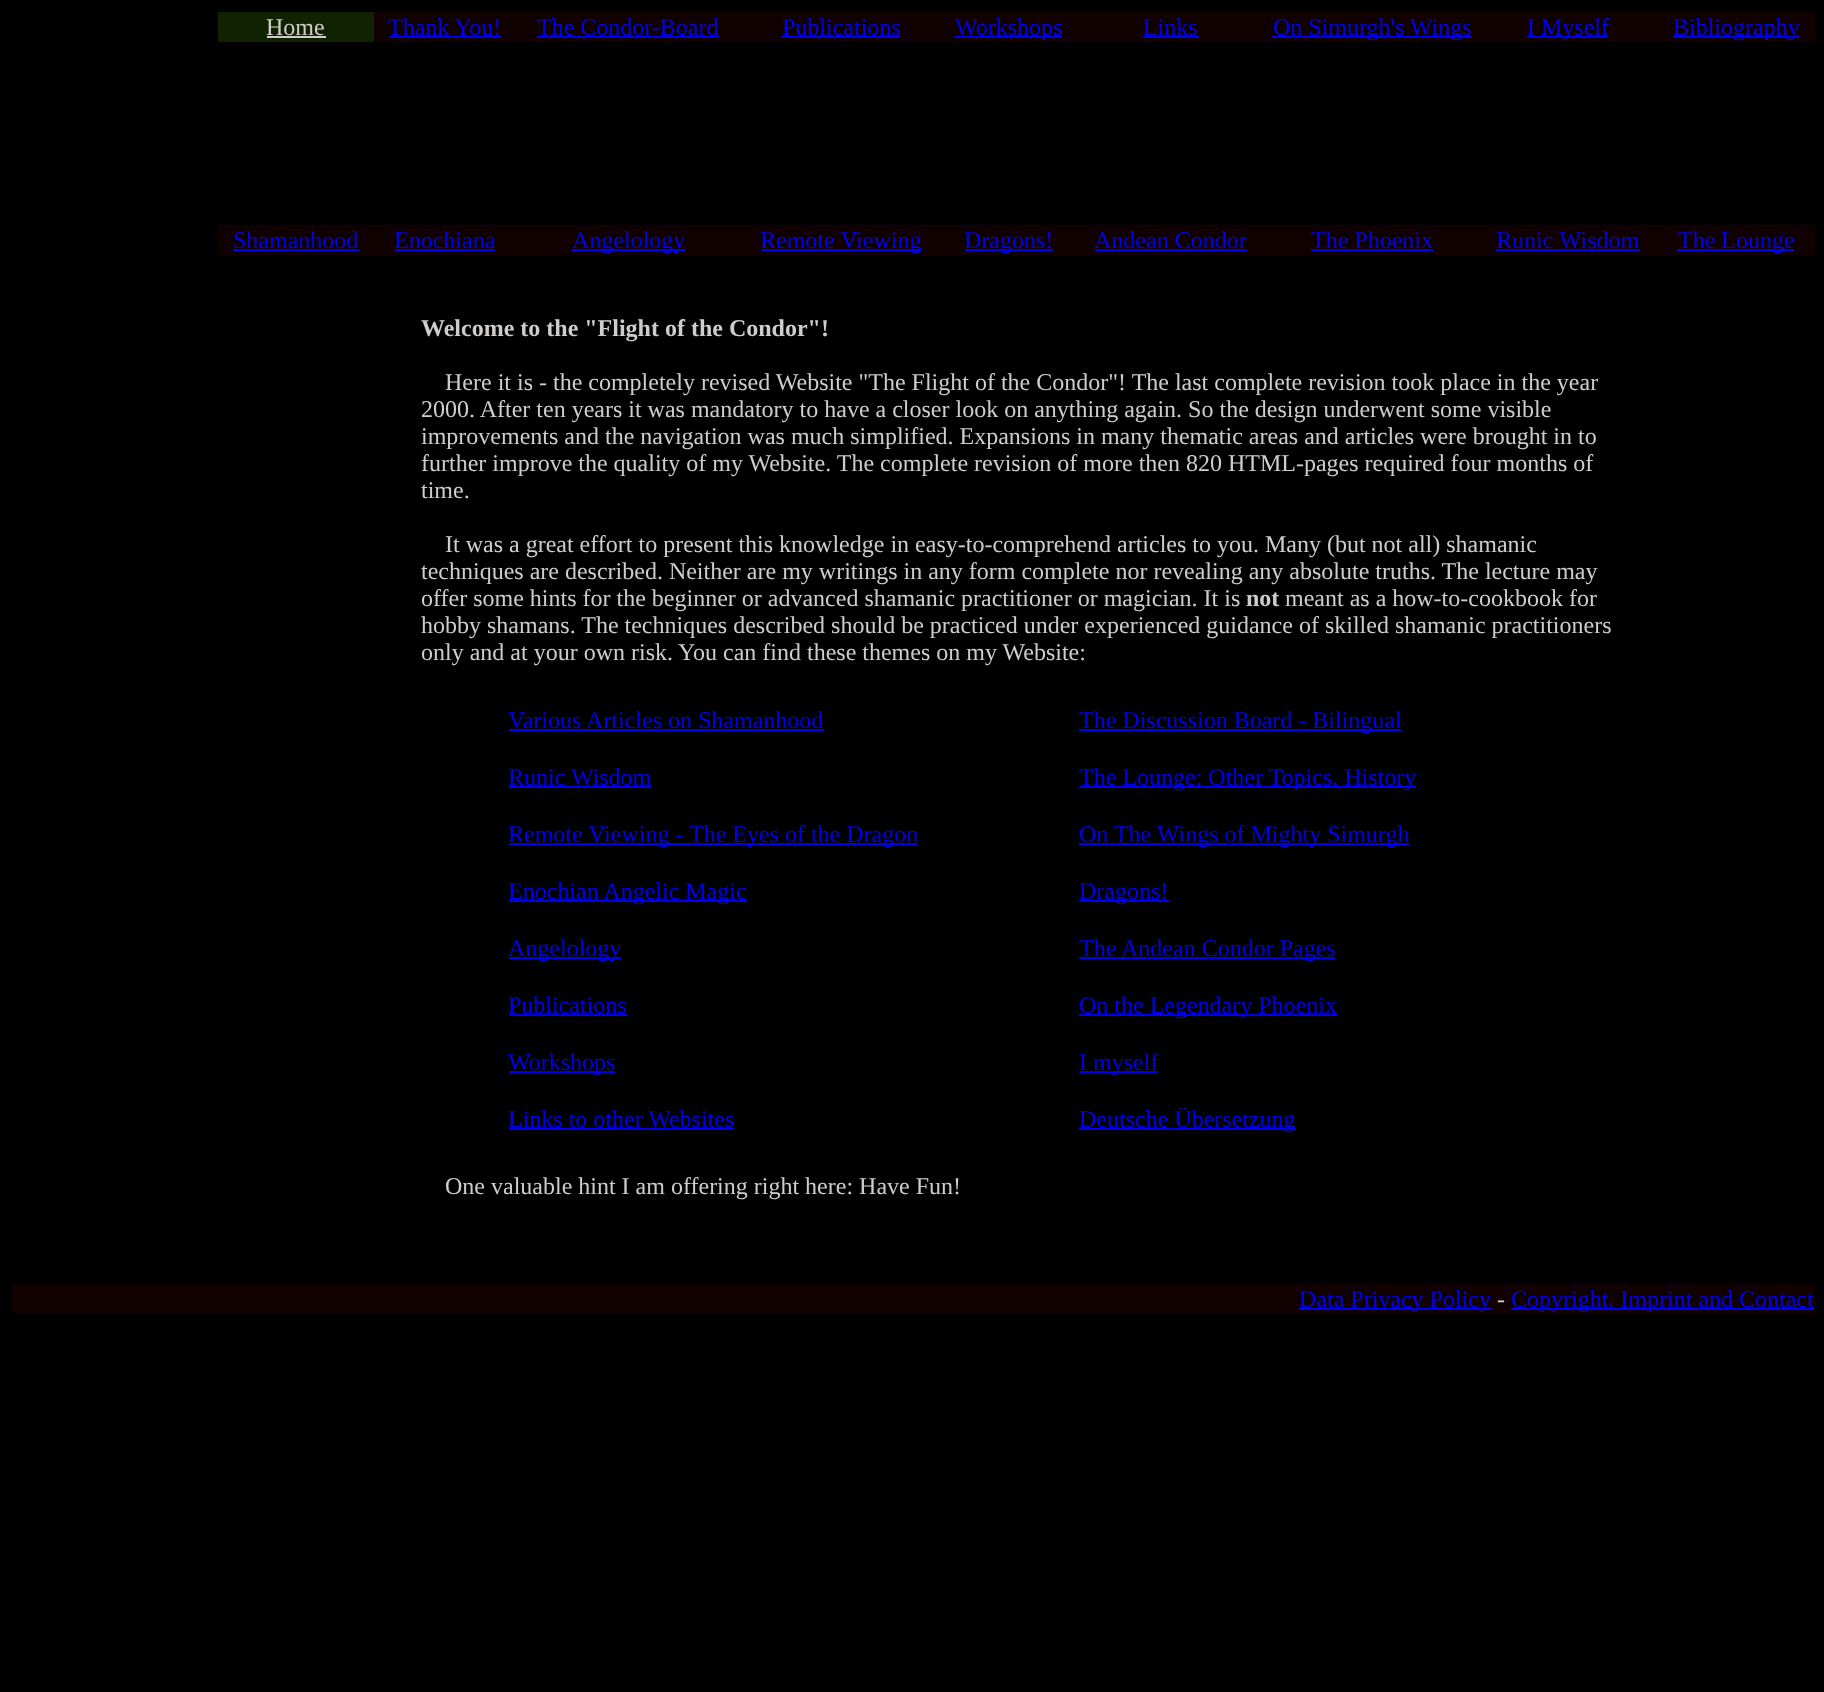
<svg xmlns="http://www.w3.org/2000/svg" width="1824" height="1692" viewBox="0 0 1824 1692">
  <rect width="100%" height="100%" fill="#000"/>
  <path d="M218 12h156v30H218z" fill="#102200"/>
  <path d="M267 36h59v2H267z" fill="#d1cccc"/>
  <path d="M374 12h1441v30H374z" fill="#100000"/>
  <path d="M389 36h112v2H389z" fill="#00e"/>
  <path d="M537 36h182v2H537z" fill="#00e"/>
  <path d="M782 36h118v2H782z" fill="#00e"/>
  <path d="M954 36h108v2H954z" fill="#00e"/>
  <path d="M1143 36h56v2H1143z" fill="#00e"/>
  <path d="M1272 36h200v2H1272z" fill="#00e"/>
  <path d="M1527 36h81v2H1527z" fill="#00e"/>
  <path d="M1673 36h126v2H1673z" fill="#00e"/>
  <path d="M218 225h1597v30H218z" fill="#100000"/>
  <path d="M233 249h126v2H233z" fill="#00e"/>
  <path d="M395 249h100v2H395z" fill="#00e"/>
  <path d="M572 249h114v2H572z" fill="#00e"/>
  <path d="M761 249h160v2H761z" fill="#00e"/>
  <path d="M965 249h88v2H965z" fill="#00e"/>
  <path d="M1095 249h152v2H1095z" fill="#00e"/>
  <path d="M1311 249h122v2H1311z" fill="#00e"/>
  <path d="M1496 249h144v2H1496z" fill="#00e"/>
  <path d="M1677 249h117v2H1677z" fill="#00e"/>
  <path d="M509 729h315v2H509z" fill="#00e"/>
  <path d="M1079 729h322v2H1079z" fill="#00e"/>
  <path d="M509 786h142v2H509z" fill="#00e"/>
  <path d="M1079 786h337v2H1079z" fill="#00e"/>
  <path d="M509 843h409v2H509z" fill="#00e"/>
  <path d="M1079 843h330v2H1079z" fill="#00e"/>
  <path d="M509 900h238v2H509z" fill="#00e"/>
  <path d="M1079 900h90v2H1079z" fill="#00e"/>
  <path d="M509 957h112v2H509z" fill="#00e"/>
  <path d="M1079 957h256v2H1079z" fill="#00e"/>
  <path d="M509 1014h118v2H509z" fill="#00e"/>
  <path d="M1079 1014h258v2H1079z" fill="#00e"/>
  <path d="M509 1071h106v2H509z" fill="#00e"/>
  <path d="M1079 1071h79v2H1079z" fill="#00e"/>
  <path d="M509 1128h225v2H509z" fill="#00e"/>
  <path d="M1079 1128h217v2H1079z" fill="#00e"/>
  <path d="M12 1284h1803v30H12z" fill="#100000"/>
  <path d="M1299 1308h192v2H1299z" fill="#00e"/>
  <path d="M1511 1308h303v2H1511z" fill="#00e"/>
  <text x="266" y="35" font-family="Liberation Serif" font-size="24" fill="#d1cccc">Home</text>
  <g font-family="Liberation Serif" font-size="24" fill="#00e">
    <text x="388" y="35">Thank You!</text>
    <text x="537" y="35">The Condor-Board</text>
    <text x="782" y="35">Publications</text>
    <text x="955" y="35">Workshops</text>
    <text x="1143" y="35">Links</text>
    <text x="1273" y="35">On Simurgh's Wings</text>
    <text x="1527" y="35">I Myself</text>
    <text x="1673" y="35">Bibliography</text>
    <text x="233" y="248">Shamanhood</text>
    <text x="394" y="248">Enochiana</text>
    <text x="572" y="248">Angelology</text>
    <text x="760" y="248">Remote Viewing</text>
    <text x="964" y="248">Dragons!</text>
    <text x="1094" y="248">Andean Condor</text>
    <text x="1311" y="248">The Phoenix</text>
    <text x="1496" y="248">Runic Wisdom</text>
    <text x="1678" y="248">The Lounge</text>
  </g>
  <text x="421" y="336" font-family="Liberation Serif" font-size="24" font-weight="bold" fill="#d1cccc">Welcome to the "Flight of the Condor"!</text>
  <g font-family="Liberation Serif" font-size="24" fill="#d1cccc">
    <text x="445" y="390">Here it is - the completely revised Website "The Flight of the Condor"! The last complete revision took place in the year</text>
    <text x="421" y="417">2000. After ten years it was mandatory to have a closer look on anything again. So the design underwent some visible</text>
    <text x="421" y="444">improvements and the navigation was much simplified. Expansions in many thematic areas and articles were brought in to</text>
    <text x="421" y="471">further improve the quality of my Website. The complete revision of more then 820 HTML-pages required four months of</text>
    <text x="421" y="498">time.</text>
    <text x="445" y="552">It was a great effort to present this knowledge in easy-to-comprehend articles to you. Many (but not all) shamanic</text>
    <text x="421" y="579">techniques are described. Neither are my writings in any form complete nor revealing any absolute truths. The lecture may</text>
    <text x="421" y="606">offer some hints for the beginner or advanced shamanic practitioner or magician. It is</text>
  </g>
  <text x="1246" y="606" font-family="Liberation Serif" font-size="24" font-weight="bold" fill="#d1cccc">not</text>
  <g font-family="Liberation Serif" font-size="24" fill="#d1cccc">
    <text x="1285" y="606">meant as a how-to-cookbook for</text>
    <text x="421" y="633">hobby shamans. The techniques described should be practiced under experienced guidance of skilled shamanic practitioners</text>
    <text x="421" y="660">only and at your own risk. You can find these themes on my Website:</text>
  </g>
  <g font-family="Liberation Serif" font-size="24" fill="#00e">
    <text x="508" y="728">Various Articles on Shamanhood</text>
    <text x="1079" y="728">The Discussion Board - Bilingual</text>
    <text x="508" y="785">Runic Wisdom</text>
    <text x="1079" y="785">The Lounge: Other Topics, History</text>
    <text x="508" y="842">Remote Viewing - The Eyes of the Dragon</text>
    <text x="1079" y="842">On The Wings of Mighty Simurgh</text>
    <text x="508" y="899">Enochian Angelic Magic</text>
    <text x="1079" y="899">Dragons!</text>
    <text x="508" y="956">Angelology</text>
    <text x="1079" y="956">The Andean Condor Pages</text>
    <text x="508" y="1013">Publications</text>
    <text x="1079" y="1013">On the Legendary Phoenix</text>
    <text x="508" y="1070">Workshops</text>
    <text x="1079" y="1070">I myself</text>
    <text x="508" y="1127">Links to other Websites</text>
    <text x="1079" y="1127">Deutsche Übersetzung</text>
  </g>
  <text x="445" y="1194" font-family="Liberation Serif" font-size="24" fill="#d1cccc">One valuable hint I am offering right here: Have Fun!</text>
  <text x="1299" y="1307" font-family="Liberation Serif" font-size="24" fill="#00e">Data Privacy Policy</text>
  <text x="1497" y="1307" font-family="Liberation Serif" font-size="24" fill="#d1cccc">-</text>
  <text x="1511" y="1307" font-family="Liberation Serif" font-size="24" fill="#00e">Copyright, Imprint and Contact</text>
</svg>
